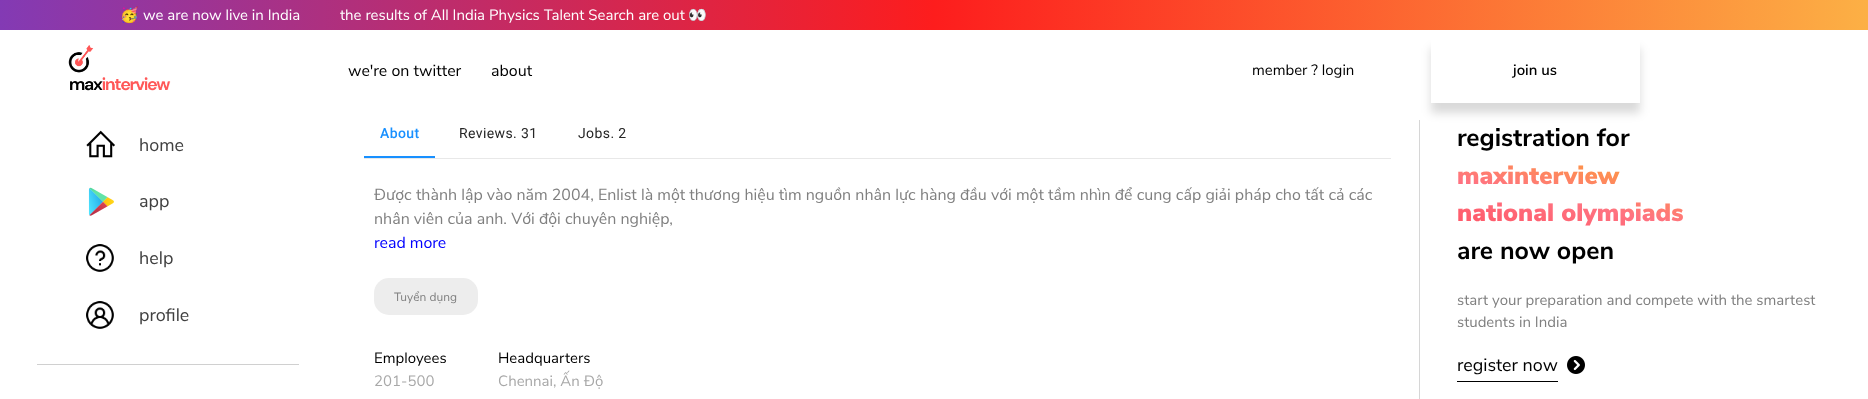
<svg xmlns="http://www.w3.org/2000/svg" width="1868" height="399" viewBox="0 0 1868 399">
  <defs>
    <linearGradient id="g1" gradientUnits="userSpaceOnUse" x1="0" y1="15" x2="1868" y2="15"><stop offset="0" stop-color="#833ab4"/><stop offset="0.5" stop-color="#fd1d1d"/><stop offset="1" stop-color="#fcb045"/></linearGradient>
    <clipPath id="clip1"><path d="M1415 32H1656V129H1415ZM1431 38H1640V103H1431Z" clip-rule="evenodd"/></clipPath>
    <linearGradient id="g2" gradientUnits="userSpaceOnUse" x1="1629" y1="267" x2="1658" y2="123"><stop offset="0" stop-color="#ff5263"/><stop offset="0.35" stop-color="#ff7381"/><stop offset="1" stop-color="#fcbd01"/></linearGradient>
  </defs>
  <rect width="100%" height="100%" fill="#fff"/>
  <path d="M0 0h1868v30H0z" fill="url(#g1)"/>
  <image x="68" y="45" width="103" height="46" href="img/1.png"/>
  <g clip-path="url(#clip1)">
    <path d="M1431 48h209v65H1431z" fill="#00000026" filter="blur(5px)"/>
  </g>
  <image x="86" y="130" width="29" height="28" href="img/2.png"/>
  <image x="88" y="187" width="26" height="29" href="img/3.png"/>
  <image x="86" y="244" width="28" height="28" href="img/4.png"/>
  <image x="86" y="301" width="28" height="28" href="img/5.png"/>
  <path d="M37 364h262v1H37z" fill="#d0d0d0"/>
  <path d="M364 158h1027v1H364z" fill="#e8e8e8"/>
  <path d="M364 156h71v2H364z" fill="#1890ff"/>
  <rect x="374" y="278" width="104" height="37" rx="15" fill="#ededed"/>
  <path d="M1419 120h1v279H1419z" fill="#d6d6d6"/>
  <path d="M1457 381h101v1H1457z" fill="#000"/>
  <image x="1567" y="356" width="18" height="18" href="img/6.png"/>
  <text x="120" y="20" font-family="Noto Color Emoji" font-size="15" fill="#fff">🥳</text>
  <g font-family="Nunito Sans" font-size="15" fill="#fff">
    <text x="143" y="20">we are now live in India</text>
    <text x="340" y="20">the results of All India Physics Talent Search are out</text>
  </g>
  <text x="688" y="20" font-family="Noto Color Emoji" font-size="15" fill="#fff">👀</text>
  <g font-family="Nunito Sans" font-size="16" fill="#000">
    <text x="348" y="76">we're on twitter</text>
    <text x="491" y="76">about</text>
  </g>
  <text x="1252" y="75" font-family="Nunito Sans" font-size="15" fill="#000">member ? login</text>
  <text x="1513" y="75" font-family="Nunito Sans" font-size="15" font-weight="600" fill="#000">join us</text>
  <g font-family="Nunito Sans" font-size="18" fill="#404040">
    <text x="139" y="151">home</text>
    <text x="139" y="207">app</text>
    <text x="139" y="264">help</text>
    <text x="139" y="321">profile</text>
  </g>
  <text x="380" y="138" font-family="Roboto" font-size="14" font-weight="500" letter-spacing="0.4" fill="#1890ff">About</text>
  <g font-family="Roboto" font-size="14" letter-spacing="0.4" fill="#262626">
    <text x="459" y="138">Reviews. 31</text>
    <text x="578" y="138">Jobs. 2</text>
  </g>
  <g font-family="Nunito Sans" font-size="16" fill="#808080">
    <text x="374" y="200">Được thành lập vào năm 2004, Enlist là một thương hiệu tìm nguồn nhân lực hàng đầu với một tầm nhìn để cung cấp giải pháp cho tất cả các</text>
    <text x="374" y="224">nhân viên của anh. Với đội chuyên nghiệp,</text>
  </g>
  <text x="374" y="248" font-family="Nunito Sans" font-size="16" fill="#00f">read more</text>
  <text x="394" y="301" font-family="Nunito Sans" font-size="12" fill="#808080">Tuyển dụng</text>
  <text x="374" y="363" font-family="Nunito Sans" font-size="15" fill="#000">Employees</text>
  <text x="374" y="386" font-family="Nunito Sans" font-size="15" fill="#a8a8a8">201-500</text>
  <text x="498" y="363" font-family="Nunito Sans" font-size="15" fill="#000">Headquarters</text>
  <text x="498" y="386" font-family="Nunito Sans" font-size="15" fill="#a8a8a8">Chennai, Ấn Độ</text>
  <text x="1457" y="146" font-family="Nunito Sans" font-size="25" font-weight="bold" fill="#000">registration for</text>
  <g font-family="Nunito Sans" font-size="25" font-weight="900" fill="url(#g2)">
    <text x="1457" y="184">maxinterview</text>
    <text x="1457" y="221">national olympiads</text>
  </g>
  <text x="1457" y="259" font-family="Nunito Sans" font-size="25" font-weight="bold" fill="#000">are now open</text>
  <g font-family="Nunito Sans" font-size="15" fill="#808080">
    <text x="1457" y="305">start your preparation and compete with the smartest</text>
    <text x="1457" y="327">students in India</text>
  </g>
  <text x="1457" y="371" font-family="Nunito Sans" font-size="18" fill="#000">register now</text>
</svg>
